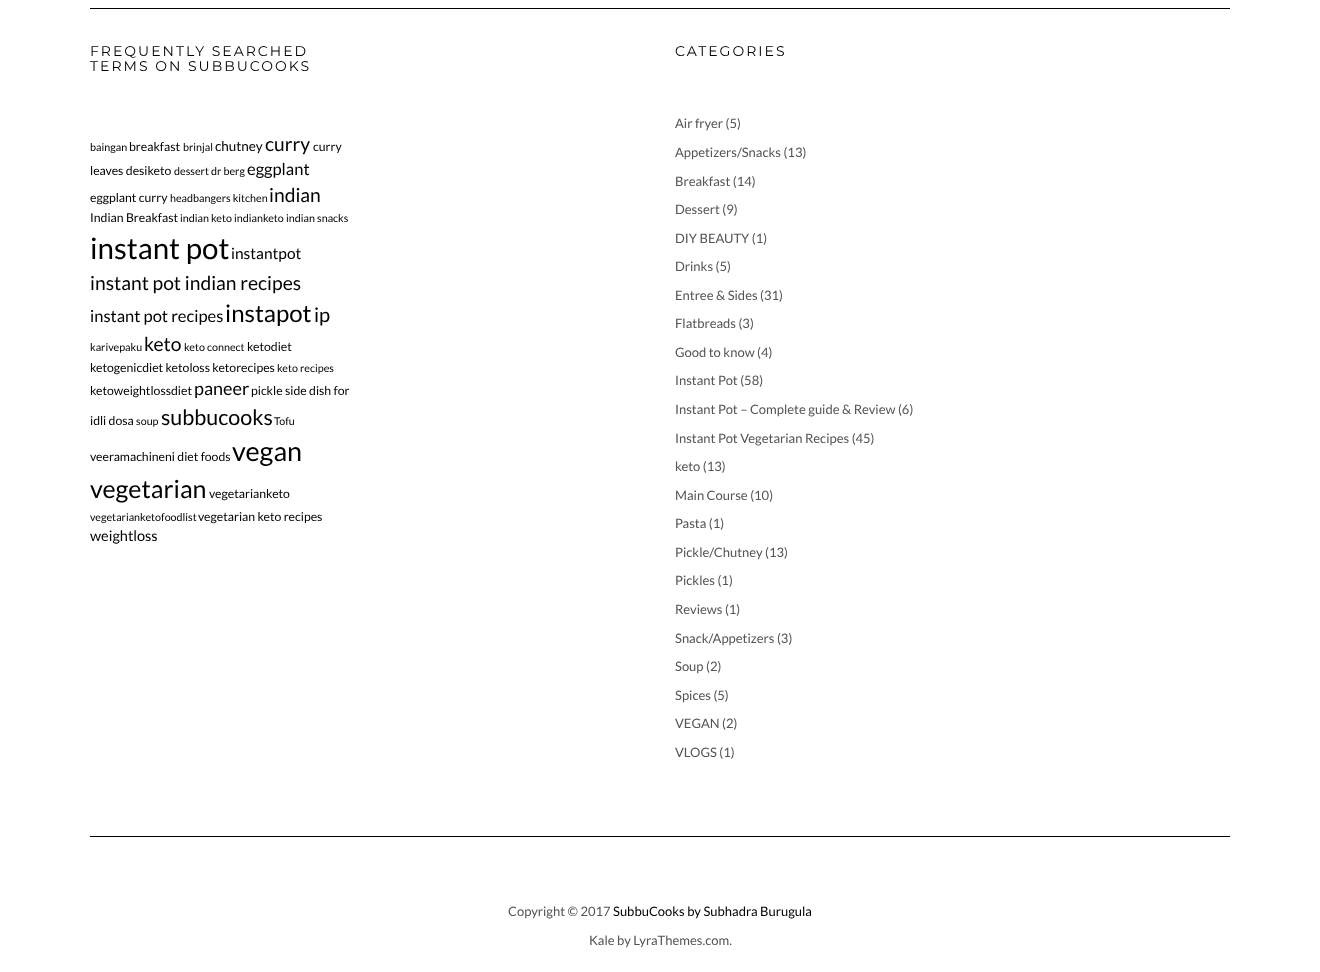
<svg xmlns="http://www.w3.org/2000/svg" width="1320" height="972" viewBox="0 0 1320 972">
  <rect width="100%" height="100%" fill="#fff"/>
  <path d="M90 8h1140v1H90z" fill="#000"/>
  <path d="M90 836h1140v1H90z" fill="#000"/>
  <g font-family="Montserrat" font-size="14" letter-spacing="2" fill="#000">
    <text x="90" y="56">FREQUENTLY SEARCHED</text>
    <text x="90" y="71">TERMS ON SUBBUCOOKS</text>
  </g>
  <text x="90" y="151" font-family="Lato" font-size="10.75" fill="#000">baingan</text>
  <text x="129" y="151" font-family="Lato" font-size="12.25" fill="#000">breakfast</text>
  <text x="183" y="151" font-family="Lato" font-size="10.75" fill="#000">brinjal</text>
  <text x="215" y="151" font-family="Lato" font-size="13.5" fill="#000">chutney</text>
  <text x="265" y="151" font-family="Lato" font-size="19.25" fill="#000">curry</text>
  <g font-family="Lato" font-size="12.25" fill="#000">
    <text x="313" y="151">curry</text>
    <text x="90" y="175">leaves desiketo</text>
  </g>
  <g font-family="Lato" font-size="10.75" fill="#000">
    <text x="174" y="175">dessert</text>
    <text x="211" y="175">dr berg</text>
  </g>
  <text x="247" y="175" font-family="Lato" font-size="16.5" fill="#000">eggplant</text>
  <text x="90" y="202" font-family="Lato" font-size="12.25" fill="#000">eggplant curry</text>
  <text x="170" y="202" font-family="Lato" font-size="10.75" fill="#000">headbangers kitchen</text>
  <text x="269" y="202" font-family="Lato" font-size="19.25" fill="#000">indian</text>
  <text x="90" y="222" font-family="Lato" font-size="12.25" fill="#000">Indian Breakfast</text>
  <g font-family="Lato" font-size="10.75" fill="#000">
    <text x="180" y="222">indian keto</text>
    <text x="234" y="222">indianketo</text>
    <text x="286" y="222">indian snacks</text>
  </g>
  <text x="90" y="259" font-family="Lato" font-size="29.5" fill="#000">instant pot</text>
  <text x="231" y="259" font-family="Lato" font-size="15.5" fill="#000">instantpot</text>
  <text x="90" y="290" font-family="Lato" font-size="19.25" fill="#000">instant pot indian recipes</text>
  <text x="90" y="322" font-family="Lato" font-size="16.5" fill="#000">instant pot recipes</text>
  <text x="225" y="322" font-family="Lato" font-size="24" fill="#000">instapot</text>
  <text x="314" y="322" font-family="Lato" font-size="20" fill="#000">ip</text>
  <text x="90" y="351" font-family="Lato" font-size="10.75" fill="#000">karivepaku</text>
  <text x="144" y="351" font-family="Lato" font-size="19.25" fill="#000">keto</text>
  <text x="184" y="351" font-family="Lato" font-size="10.75" fill="#000">keto connect</text>
  <g font-family="Lato" font-size="12.25" fill="#000">
    <text x="247" y="351">ketodiet</text>
    <text x="90" y="372">ketogenicdiet ketoloss ketorecipes</text>
  </g>
  <text x="277" y="372" font-family="Lato" font-size="10.75" fill="#000">keto recipes</text>
  <text x="90" y="395" font-family="Lato" font-size="12.25" fill="#000">ketoweightlossdiet</text>
  <text x="194" y="395" font-family="Lato" font-size="18" fill="#000">paneer</text>
  <g font-family="Lato" font-size="12.25" fill="#000">
    <text x="251" y="395">pickle side dish for</text>
    <text x="90" y="425">idli dosa</text>
  </g>
  <text x="136" y="425" font-family="Lato" font-size="10.75" fill="#000">soup</text>
  <text x="161" y="425" font-family="Lato" font-size="21.5" fill="#000">subbucooks</text>
  <text x="274" y="425" font-family="Lato" font-size="10.75" fill="#000">Tofu</text>
  <text x="90" y="461" font-family="Lato" font-size="12.25" fill="#000">veeramachineni diet foods</text>
  <text x="232" y="461" font-family="Lato" font-size="27" fill="#000">vegan</text>
  <text x="90" y="498" font-family="Lato" font-size="25" fill="#000">vegetarian</text>
  <text x="209" y="498" font-family="Lato" font-size="12.25" fill="#000">vegetarianketo</text>
  <text x="90" y="521" font-family="Lato" font-size="10.75" fill="#000">vegetarianketofoodlist</text>
  <text x="198" y="521" font-family="Lato" font-size="12.25" fill="#000">vegetarian keto recipes</text>
  <text x="90" y="541" font-family="Lato" font-size="14.5" fill="#000">weightloss</text>
  <text x="675" y="56" font-family="Montserrat" font-size="14" letter-spacing="2" fill="#000">CATEGORIES</text>
  <g font-family="Lato" font-size="13" fill="#545454">
    <text x="675" y="128">Air fryer (5)</text>
    <text x="675" y="157">Appetizers/Snacks (13)</text>
    <text x="675" y="186">Breakfast (14)</text>
    <text x="675" y="214">Dessert (9)</text>
    <text x="675" y="243">DIY BEAUTY (1)</text>
    <text x="675" y="271">Drinks (5)</text>
    <text x="675" y="300">Entree &amp; Sides (31)</text>
    <text x="675" y="328">Flatbreads (3)</text>
    <text x="675" y="357">Good to know (4)</text>
    <text x="675" y="385">Instant Pot (58)</text>
    <text x="675" y="414">Instant Pot – Complete guide &amp; Review (6)</text>
    <text x="675" y="443">Instant Pot Vegetarian Recipes (45)</text>
    <text x="675" y="471">keto (13)</text>
    <text x="675" y="500">Main Course (10)</text>
    <text x="675" y="528">Pasta (1)</text>
    <text x="675" y="557">Pickle/Chutney (13)</text>
    <text x="675" y="585">Pickles (1)</text>
    <text x="675" y="614">Reviews (1)</text>
    <text x="675" y="643">Snack/Appetizers (3)</text>
    <text x="675" y="671">Soup (2)</text>
    <text x="675" y="700">Spices (5)</text>
    <text x="675" y="728">VEGAN (2)</text>
    <text x="675" y="757">VLOGS (1)</text>
    <text x="508" y="916">Copyright © 2017</text>
  </g>
  <text x="613" y="916" font-family="Lato" font-size="13" fill="#000">SubbuCooks by Subhadra Burugula</text>
  <text x="589" y="945" font-family="Lato" font-size="13" fill="#545454">Kale by LyraThemes.com.</text>
</svg>
